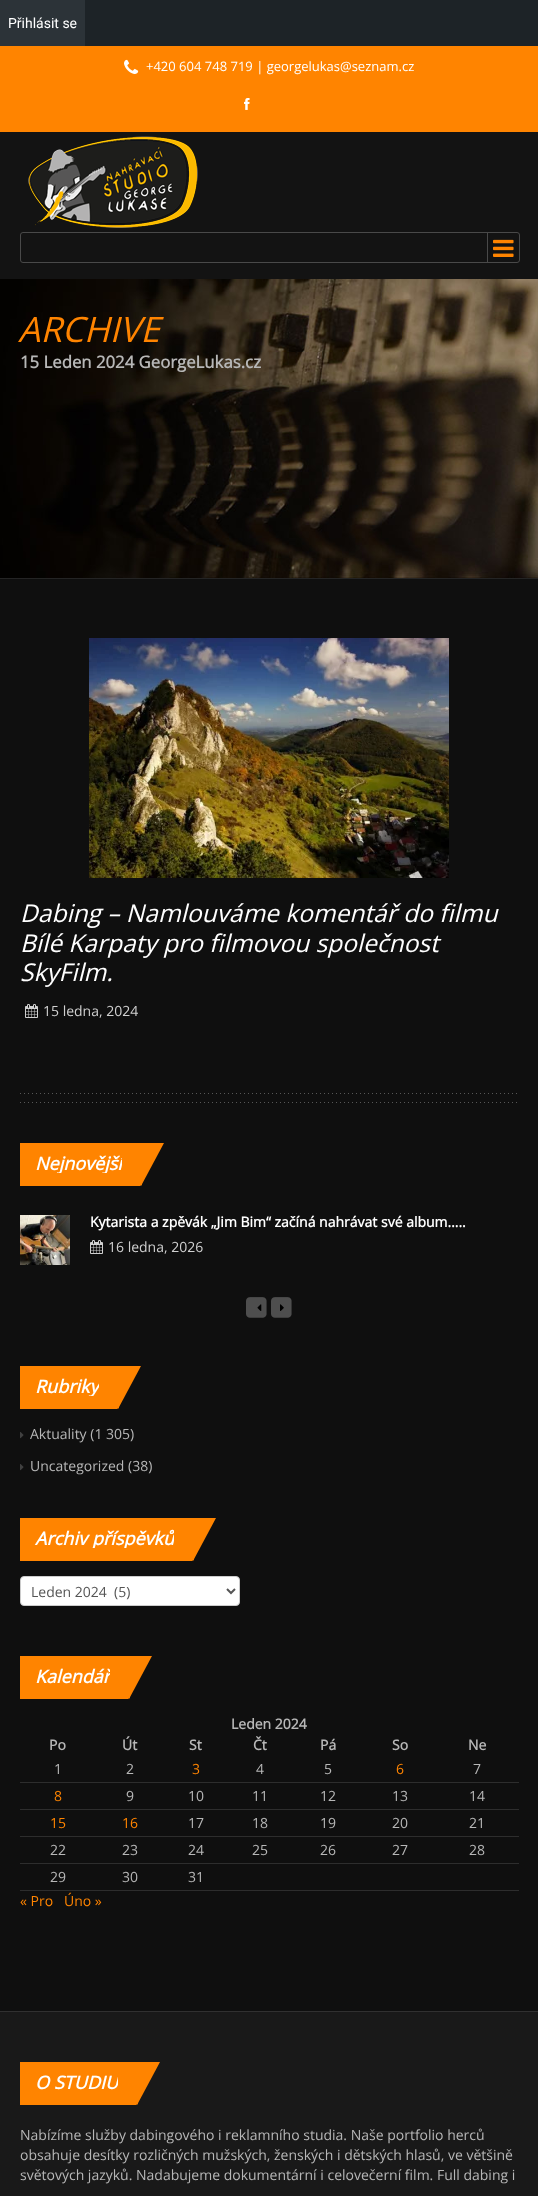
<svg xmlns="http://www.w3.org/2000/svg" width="538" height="2196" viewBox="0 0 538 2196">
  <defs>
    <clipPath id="clip1"><path d="M35 1153h87v20H35z"/></clipPath>
    <clipPath id="clip2"><path d="M35 1376h64v20H35z"/></clipPath>
    <clipPath id="clip3"><path d="M35 1528h139v20H35z"/></clipPath>
    <clipPath id="clip4"><path d="M35 1666h75v20H35z"/></clipPath>
    <clipPath id="clip5"><path d="M35 2072h83v20H35z"/></clipPath>
  </defs>
  <rect width="100%" height="100%" fill="#ff8400"/>
  <path d="M85 0h453v46H85z" fill="#1d2327"/>
  <path d="M0 0h85v46H0z" fill="#2c3338"/>
  <image x="124" y="59" width="15" height="15" href="img/1.png"/>
  <image x="244" y="98" width="6" height="12" href="img/2.png"/>
  <path d="M0 132h538v147H0z" fill="#131313"/>
  <image x="28" y="136" width="170" height="92" href="img/3.png"/>
  <rect x="20.5" y="232.5" width="499" height="30" rx="2.5" fill="none" stroke="#494949"/>
  <path d="M487 233h1v30H487z" fill="#494949"/>
  <image x="493" y="239" width="21" height="18" href="img/4.png"/>
  <image x="0" y="279" width="538" height="299" href="img/5.png"/>
  <path d="M0 578h538v1H0z" fill="#242424"/>
  <path d="M0 579h538v1432H0z" fill="#0f0f0f"/>
  <image x="89" y="638" width="360" height="240" href="img/6.png"/>
  <image x="25" y="1004" width="13" height="14" href="img/7.png"/>
  <image x="20" y="1102" width="497" height="1" href="img/8.png"/>
  <image x="20" y="1093" width="497" height="1" href="img/8.png"/>
  <path d="M20 1143H142V1183.5C142 1185 141 1186 139.5 1186H20Z" fill="#ff8400"/>
  <path d="M141 1143H164L141 1186Z" fill="#ff8400"/>
  <image x="20" y="1215" width="50" height="50" href="img/9.png"/>
  <image x="90" y="1240" width="13" height="14" href="img/7.png"/>
  <image x="246" y="1297" width="21" height="21" href="img/10.png"/>
  <image x="257" y="1304" width="5" height="7" href="img/11.png"/>
  <image x="271" y="1297" width="21" height="21" href="img/10.png"/>
  <image x="280" y="1304" width="4" height="7" href="img/12.png"/>
  <path d="M20 1366H119V1406.5C119 1408 118 1409 116.5 1409H20Z" fill="#ff8400"/>
  <path d="M118 1366H141L118 1409Z" fill="#ff8400"/>
  <image x="20" y="1432" width="4" height="7" href="img/13.png"/>
  <image x="20" y="1464" width="4" height="7" href="img/13.png"/>
  <path d="M20 1518H194V1558.5C194 1560 193 1561 191.5 1561H20Z" fill="#ff8400"/>
  <path d="M193 1518H216L193 1561Z" fill="#ff8400"/>
  <rect x="20.5" y="1576.5" width="219" height="29" rx="3.5" fill="#fff" stroke="#ccc"/>
  <path d="M227 1589L231 1593L235 1589" fill="none" stroke="#555" stroke-width="2"/>
  <path d="M20 1656H130V1696.5C130 1698 129 1699 127.5 1699H20Z" fill="#ff8400"/>
  <path d="M129 1656H152L129 1699Z" fill="#ff8400"/>
  <path d="M20 1782h499v1H20z" fill="#2d2d2d"/>
  <path d="M20 1809h499v1H20z" fill="#2d2d2d"/>
  <path d="M20 1836h499v1H20z" fill="#2d2d2d"/>
  <path d="M20 1863h499v1H20z" fill="#2d2d2d"/>
  <path d="M20 1890h499v1H20z" fill="#2d2d2d"/>
  <path d="M0 2012h538v184H0z" fill="#191919"/>
  <path d="M0 2011h538v1H0z" fill="#303030"/>
  <path d="M20 2062H138V2102.5C138 2104 137 2105 135.5 2105H20Z" fill="#ff8400"/>
  <path d="M137 2062H160L137 2105Z" fill="#ff8400"/>
  <text x="8" y="28" font-family="Roboto" font-size="14" fill="#fff">Přihlásit se</text>
  <text x="146" y="71" font-family="Open Sans" font-size="13" fill="#fff">+420 604 748 719 | georgelukas@seznam.cz</text>
  <text x="18" y="342" font-family="Open Sans" font-size="35" font-style="italic" fill="#ff8400">ARCHIVE</text>
  <text x="20" y="368" font-family="Open Sans" font-size="16.75" font-weight="bold" fill="#b7b7b7">15 Leden 2024 GeorgeLukas.cz</text>
  <g font-family="Open Sans" font-size="24.5" font-style="italic" fill="#fff">
    <text x="20" y="922">Dabing – Namlouváme komentář do filmu</text>
    <text x="20" y="952">Bílé Karpaty pro filmovou společnost</text>
    <text x="20" y="981">SkyFilm.</text>
  </g>
  <text x="43" y="1016" font-family="Open Sans" font-size="14" fill="#d0d0d0">15 ledna, 2024</text>
  <g clip-path="url(#clip1)">
    <text x="35" y="1170" font-family="Open Sans" font-size="18" font-weight="bold" font-style="italic" fill="#fff">Nejnovější</text>
  </g>
  <text x="90" y="1227" font-family="Open Sans" font-size="14" font-weight="bold" fill="#fff">Kytarista a zpěvák „Jim Bim“ začíná nahrávat své album…..</text>
  <text x="108" y="1252" font-family="Open Sans" font-size="14" fill="#d0d0d0">16 ledna, 2026</text>
  <g clip-path="url(#clip2)">
    <text x="35" y="1393" font-family="Open Sans" font-size="18" font-weight="bold" font-style="italic" fill="#fff">Rubriky</text>
  </g>
  <g font-family="Open Sans" font-size="14" fill="#b7b7b7">
    <text x="30" y="1439">Aktuality (1 305)</text>
    <text x="30" y="1471">Uncategorized (38)</text>
  </g>
  <text x="35" y="1545" font-family="Open Sans" font-size="18" font-weight="bold" font-style="italic" fill="#fff">Archiv</text>
  <g clip-path="url(#clip3)">
    <text x="92" y="1545" font-family="Open Sans" font-size="18" font-weight="bold" font-style="italic" fill="#fff">příspěvků</text>
  </g>
  <text x="31" y="1597" font-family="Open Sans" font-size="14" fill="#555" xml:space="preserve">Leden 2024  (5)</text>
  <g clip-path="url(#clip4)">
    <text x="35" y="1683" font-family="Open Sans" font-size="18" font-weight="bold" font-style="italic" fill="#fff">Kalendář</text>
  </g>
  <g font-family="Open Sans" font-size="14" font-weight="bold" fill="#b7b7b7">
    <text x="231" y="1729">Leden 2024</text>
    <text x="49" y="1750">Po</text>
    <text x="122" y="1750">Út</text>
    <text x="189" y="1750">St</text>
    <text x="253" y="1750">Čt</text>
    <text x="320" y="1750">Pá</text>
    <text x="392" y="1750">So</text>
    <text x="468" y="1750">Ne</text>
  </g>
  <g font-family="Open Sans" font-size="14" fill="#b7b7b7">
    <text x="54" y="1774">1</text>
    <text x="126" y="1774">2</text>
  </g>
  <text x="192" y="1774" font-family="Open Sans" font-size="14" fill="#ff8400">3</text>
  <g font-family="Open Sans" font-size="14" fill="#b7b7b7">
    <text x="256" y="1774">4</text>
    <text x="324" y="1774">5</text>
  </g>
  <text x="396" y="1774" font-family="Open Sans" font-size="14" fill="#ff8400">6</text>
  <text x="473" y="1774" font-family="Open Sans" font-size="14" fill="#b7b7b7">7</text>
  <text x="54" y="1801" font-family="Open Sans" font-size="14" fill="#ff8400">8</text>
  <g font-family="Open Sans" font-size="14" fill="#b7b7b7">
    <text x="126" y="1801">9</text>
    <text x="188" y="1801">10</text>
    <text x="252" y="1801">11</text>
    <text x="320" y="1801">12</text>
    <text x="392" y="1801">13</text>
    <text x="469" y="1801">14</text>
  </g>
  <g font-family="Open Sans" font-size="14" fill="#ff8400">
    <text x="50" y="1828">15</text>
    <text x="122" y="1828">16</text>
  </g>
  <g font-family="Open Sans" font-size="14" fill="#b7b7b7">
    <text x="188" y="1828">17</text>
    <text x="252" y="1828">18</text>
    <text x="320" y="1828">19</text>
    <text x="392" y="1828">20</text>
    <text x="469" y="1828">21</text>
    <text x="50" y="1855">22</text>
    <text x="122" y="1855">23</text>
    <text x="188" y="1855">24</text>
    <text x="252" y="1855">25</text>
    <text x="320" y="1855">26</text>
    <text x="392" y="1855">27</text>
    <text x="469" y="1855">28</text>
    <text x="50" y="1882">29</text>
    <text x="122" y="1882">30</text>
    <text x="188" y="1882">31</text>
  </g>
  <g font-family="Open Sans" font-size="14" fill="#ff8400">
    <text x="20" y="1906">« Pro</text>
    <text x="64" y="1906">Úno »</text>
  </g>
  <text x="35" y="2089" font-family="Open Sans" font-size="18" font-weight="bold" font-style="italic" fill="#fff">O</text>
  <g clip-path="url(#clip5)">
    <text x="54" y="2089" font-family="Open Sans" font-size="18" font-weight="bold" font-style="italic" fill="#fff">STUDIU</text>
  </g>
  <g font-family="Open Sans" font-size="14" fill="#b7b7b7">
    <text x="20" y="2140">Nabízíme služby dabingového i reklamního studia. Naše portfolio herců</text>
    <text x="20" y="2160">obsahuje desítky rozličných mužských, ženských i dětských hlasů, ve většině</text>
    <text x="20" y="2180">světových jazyků. Nadabujeme dokumentární i celovečerní film. Full dabing i</text>
  </g>
</svg>
